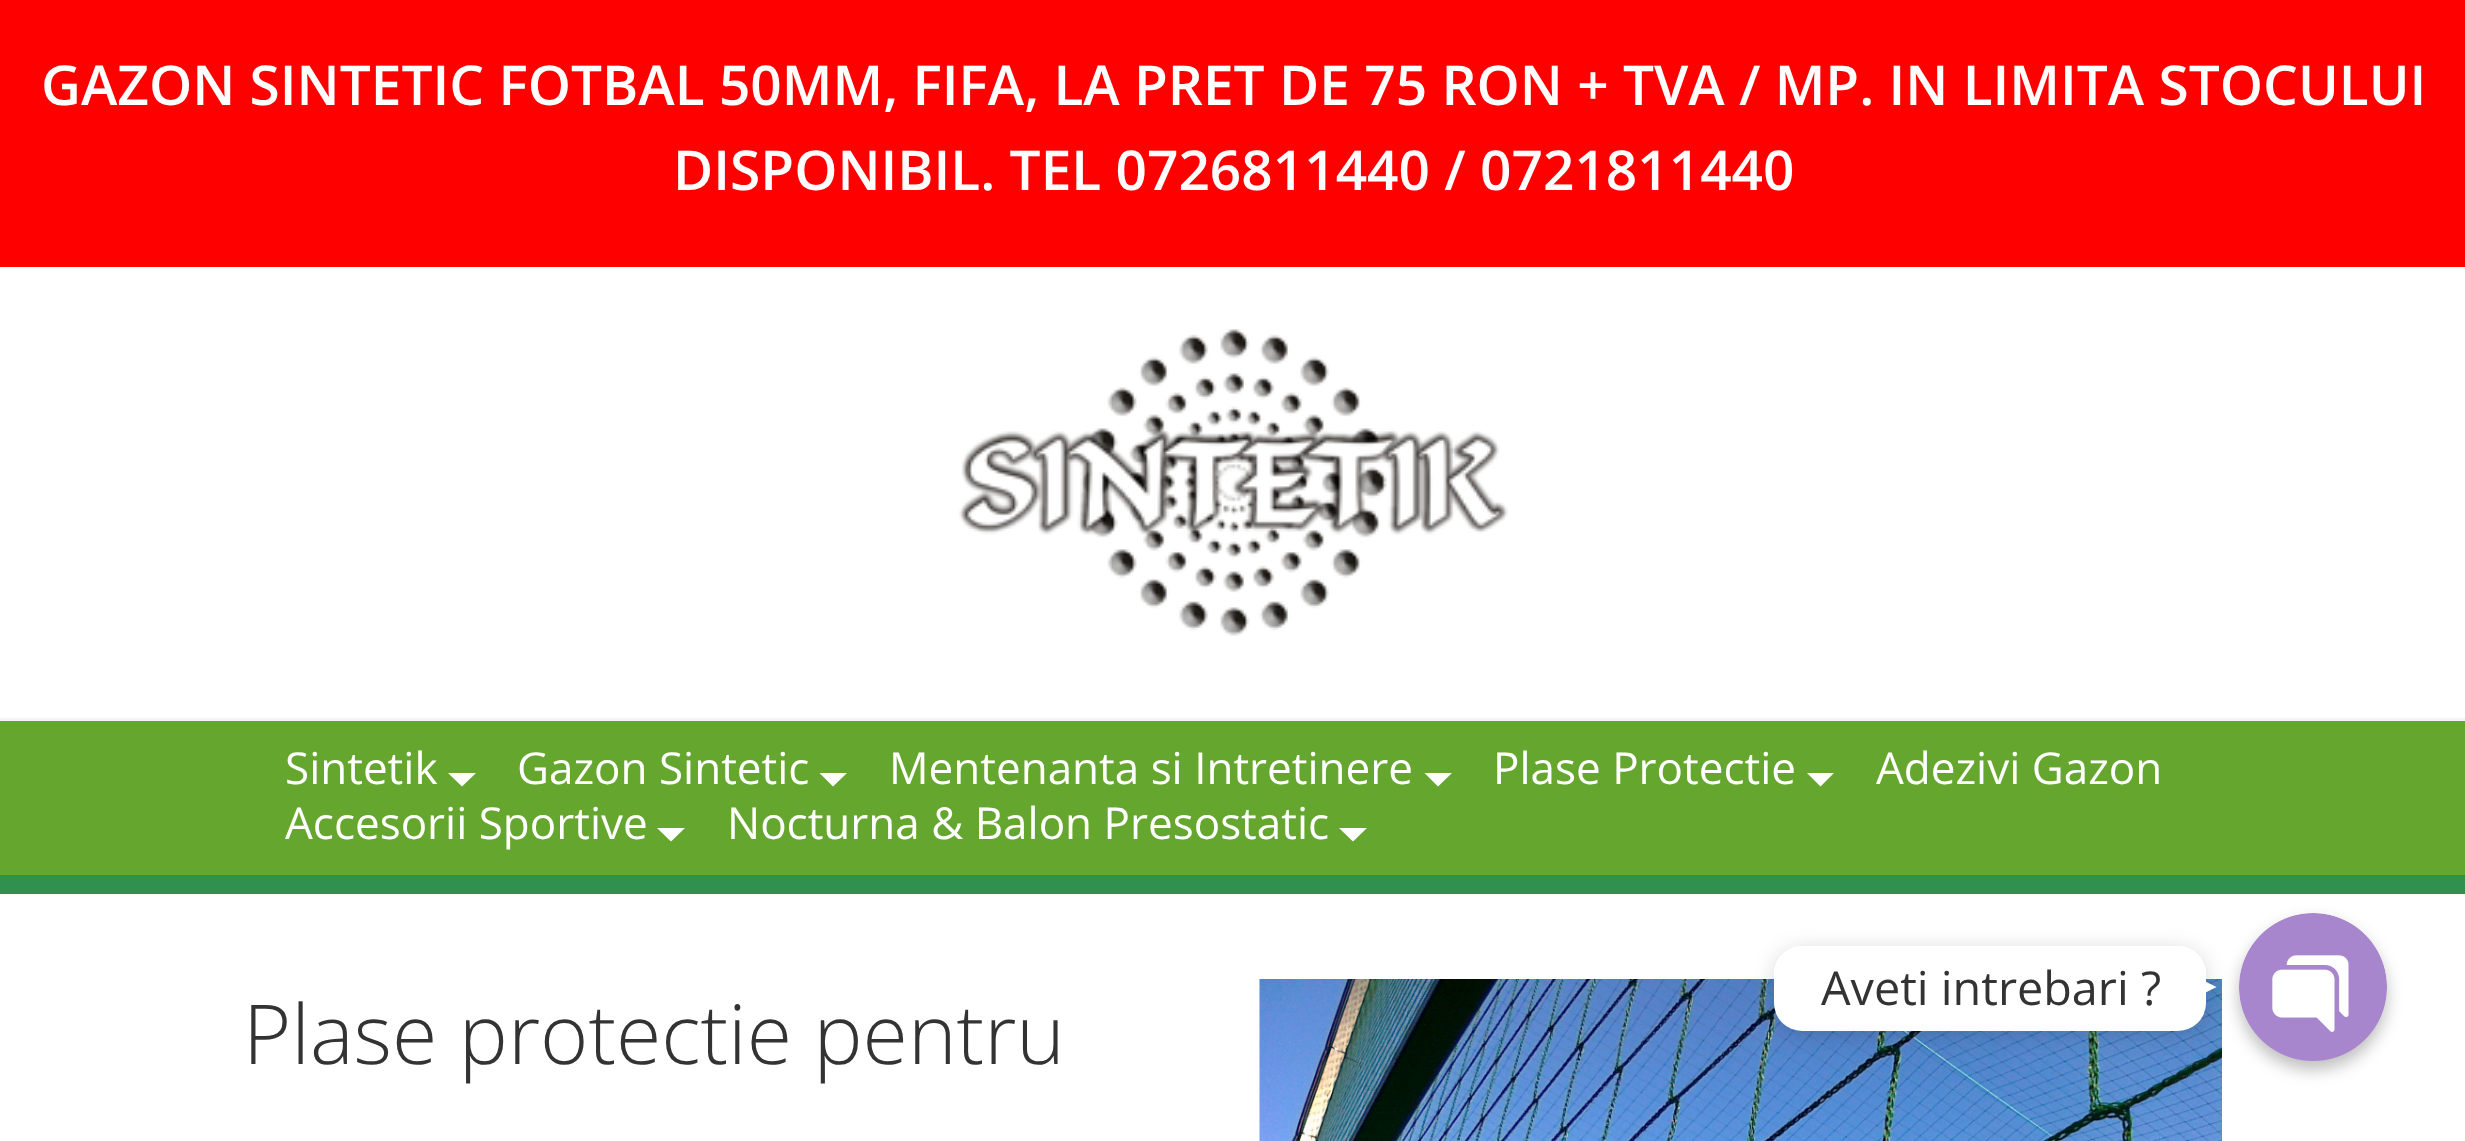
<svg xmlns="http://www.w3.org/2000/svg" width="2465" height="1141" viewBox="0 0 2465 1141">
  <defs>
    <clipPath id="clip1"><path d="M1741 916H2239V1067H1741ZM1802 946H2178C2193.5 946 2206 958.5 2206 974V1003C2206 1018.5 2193.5 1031 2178 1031H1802C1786.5 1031 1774 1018.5 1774 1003V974C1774 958.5 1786.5 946 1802 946Z" clip-rule="evenodd"/></clipPath>
  </defs>
  <rect width="100%" height="100%" fill="#fff"/>
  <path d="M0 0h2465v267H0z" fill="#f00"/>
  <image x="959" y="329" width="549" height="307" href="img/1.png"/>
  <path d="M0 721h2465v154H0z" fill="#65a72e"/>
  <path d="M0 718h2465v3H0z" fill="#f4f4f4"/>
  <path d="M0 875h2465v19H0z" fill="#2f904f"/>
  <path d="M448 773H476L462 786.5Z" fill="#fff"/>
  <path d="M819.5 773H847L833 786.5Z" fill="#fff"/>
  <path d="M1424.5 773H1452L1438 786.5Z" fill="#fff"/>
  <path d="M1807 773H1834L1820.5 786.5Z" fill="#fff"/>
  <path d="M657 828H685L671 841.5Z" fill="#fff"/>
  <path d="M1339 828H1367L1353 841.5Z" fill="#fff"/>
  <image x="1259" y="979" width="963" height="162" href="img/2.png"/>
  <g clip-path="url(#clip1)">
    <rect x="1774" y="949" width="432" height="85" rx="28" fill="#00000026" filter="blur(10.5px)"/>
  </g>
  <rect x="1774" y="946" width="432" height="85" rx="28" fill="#fff"/>
  <rect x="2239" y="921" width="148" height="149" rx="74" fill="#00000040" filter="blur(8px)"/>
  <path d="M2189 1001V973.5L2216.5 987Z" fill="#fff"/>
  <image x="2239" y="913" width="148" height="148" href="img/3.png"/>
  <g font-family="Open Sans" font-size="55" font-weight="600" fill="#fff">
    <text x="41" y="105">GAZON SINTETIC FOTBAL 50MM, FIFA, LA PRET DE 75 RON + TVA / MP. IN LIMITA STOCULUI</text>
    <text x="673" y="190">DISPONIBIL. TEL 0726811440 / 0721811440</text>
  </g>
  <g font-family="Open Sans" font-size="44" fill="#fff">
    <text x="285" y="784">Sintetik</text>
    <text x="517" y="784">Gazon Sintetic</text>
    <text x="889" y="784">Mentenanta si Intretinere</text>
    <text x="1493" y="784">Plase Protectie</text>
    <text x="1876" y="784">Adezivi Gazon</text>
    <text x="285" y="839">Accesorii Sportive</text>
    <text x="727" y="839">Nocturna &amp; Balon Presostatic</text>
  </g>
  <text x="243" y="1064" font-family="Open Sans" font-size="82.5" font-weight="300" fill="#333">Plase protectie pentru</text>
  <text x="1821" y="1005" font-family="Open Sans" font-size="46.75" fill="#333">Aveti intrebari ?</text>
</svg>
